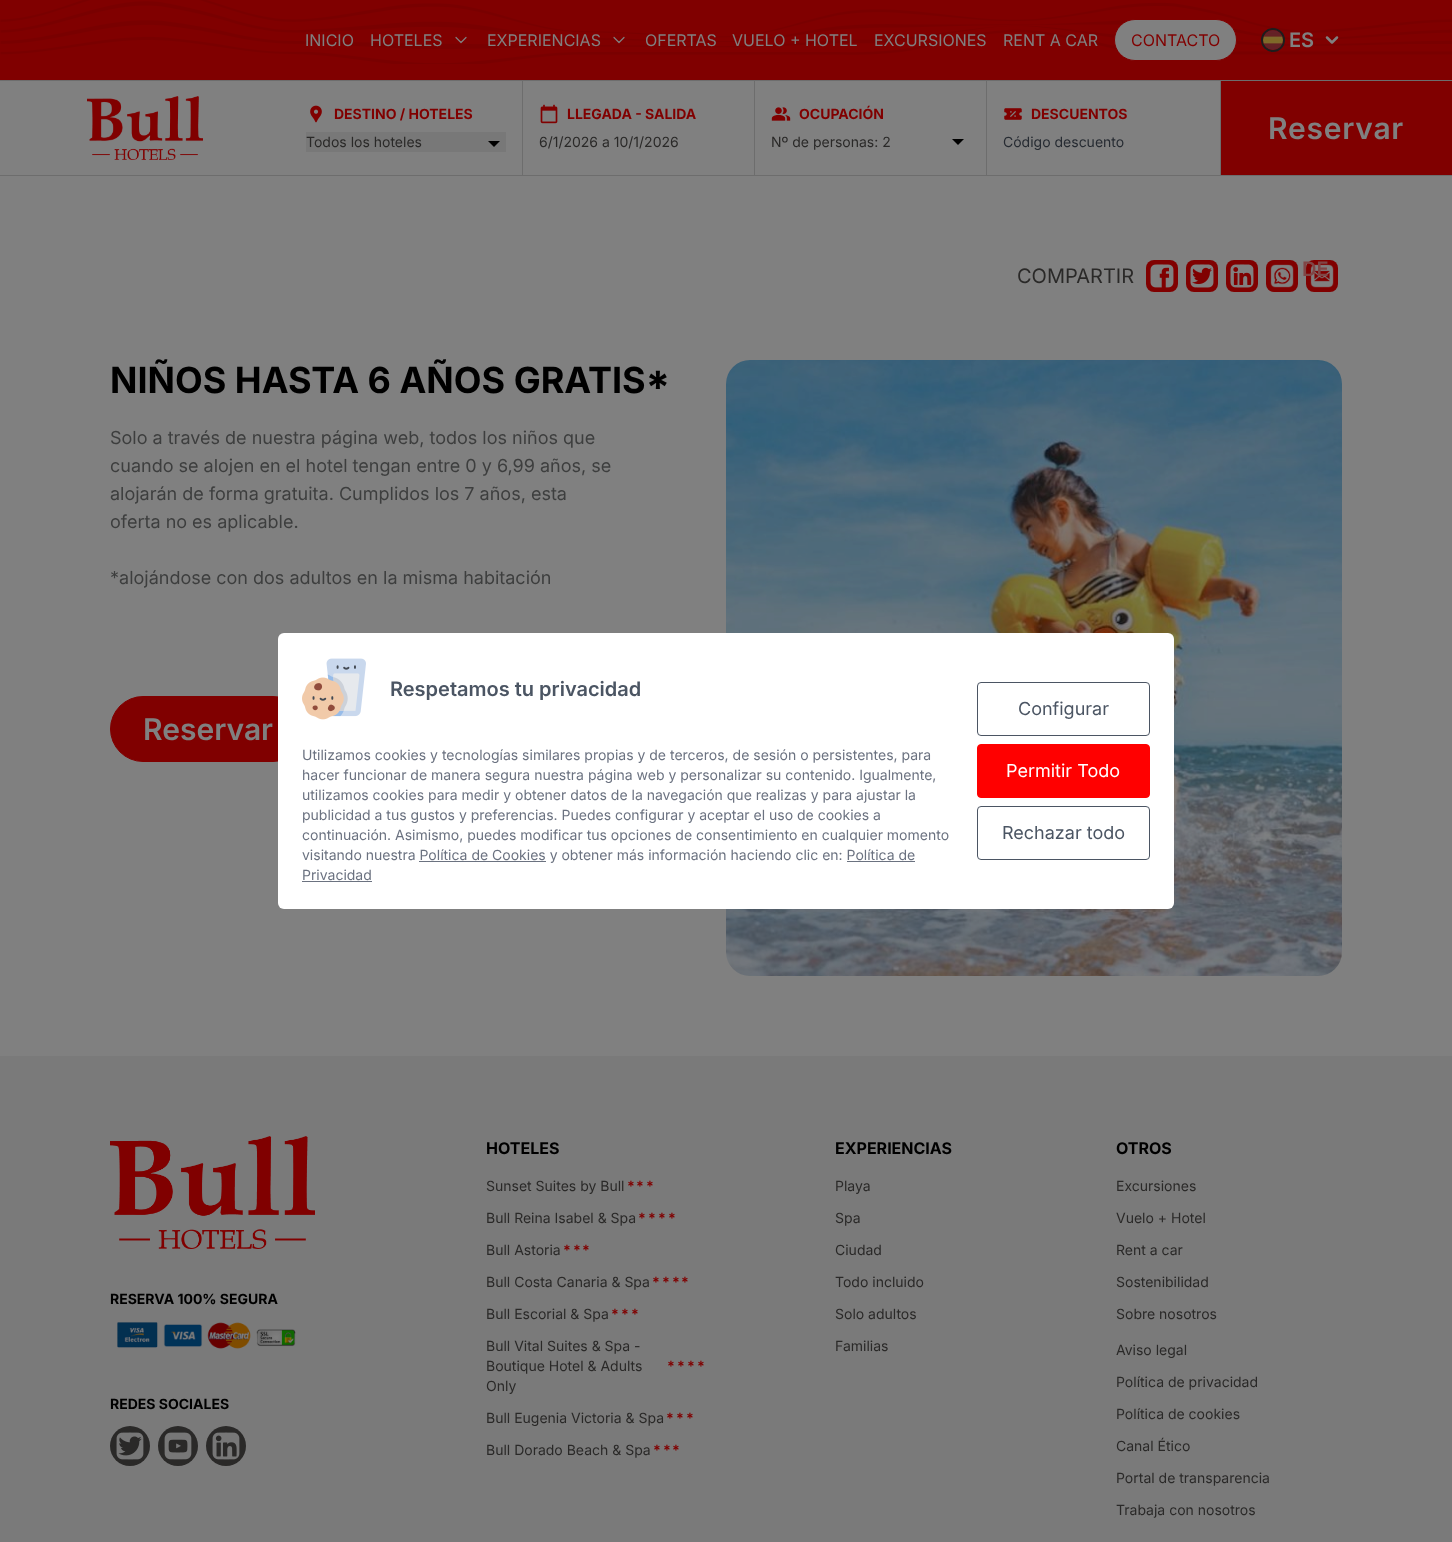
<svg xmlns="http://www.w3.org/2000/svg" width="1452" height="1542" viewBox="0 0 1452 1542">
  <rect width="100%" height="100%" fill="#808080"/>
  <path d="M0 0h1452v80H0z" fill="#800000"/>
  <image x="0" y="0" width="1452" height="64" href="img/1.png"/>
  <path d="M456 37.5L461 42.5L466 37.5" fill="none" stroke="#808080" stroke-width="1.2" stroke-linecap="round" stroke-linejoin="round"/>
  <path d="M614 37.5L619 42.5L624 37.5" fill="none" stroke="#808080" stroke-width="1.2" stroke-linecap="round" stroke-linejoin="round"/>
  <rect x="1114.5" y="19.5" width="122" height="41" rx="20.5" fill="#808080" stroke="#800000"/>
  <circle cx="1273" cy="40" r="11" fill="none" stroke="#1d1d1d" stroke-width="2"/>
  <image x="1263" y="30" width="20" height="20" href="img/2.png"/>
  <path d="M1327 37.5L1332 42.5L1337 37.5" fill="none" stroke="#808080" stroke-width="2.5" stroke-linecap="round" stroke-linejoin="round"/>
  <path d="M0 80h1452v1H0z" fill="#6d6d6d"/>
  <path d="M0 175h1452v1H0z" fill="#6d6d6d"/>
  <image x="87" y="96" width="116" height="64" href="img/3.png"/>
  <path d="M522 81h1v94H522z" fill="#6d6d6d"/>
  <image x="310" y="105" width="12" height="18" href="img/4.png"/>
  <path d="M306 132h200v20H306z" fill="#787878"/>
  <path d="M488 141L494 147L500 141H488" fill="#000"/>
  <path d="M754 81h1v94H754z" fill="#6d6d6d"/>
  <image x="540" y="104" width="18" height="20" href="img/5.png"/>
  <path d="M986 81h1v94H986z" fill="#6d6d6d"/>
  <image x="771" y="107" width="20" height="14" href="img/6.png"/>
  <path d="M952 139L958 145L964 139H952" fill="#000"/>
  <image x="1004" y="108" width="18" height="12" href="img/7.png"/>
  <path d="M1221 81h231v94H1221z" fill="#800000"/>
  <path d="M1220 81h1v94H1220z" fill="#6d6d6d"/>
  <rect x="1146" y="260" width="32" height="32" rx="8" fill="#800000"/>
  <image x="1150" y="264" width="24" height="24" href="img/8.png"/>
  <rect x="1186" y="260" width="32" height="32" rx="8" fill="#800000"/>
  <image x="1190" y="264" width="24" height="24" href="img/9.png"/>
  <rect x="1226" y="260" width="32" height="32" rx="8" fill="#800000"/>
  <image x="1230" y="264" width="24" height="24" href="img/10.png"/>
  <rect x="1266" y="260" width="32" height="32" rx="8" fill="#800000"/>
  <image x="1270" y="264" width="24" height="24" href="img/11.png"/>
  <rect x="1306" y="260" width="32" height="32" rx="8" fill="#800000"/>
  <image x="1310" y="264" width="24" height="24" href="img/12.png"/>
  <rect x="110.5" y="696.5" width="195" height="65" rx="32.5" fill="#800000" stroke="#800000"/>
  <image x="726" y="360" width="616" height="616" href="img/13.png"/>
  <rect x="278" y="633" width="896" height="276" rx="6" fill="#fff"/>
  <image x="302" y="658" width="64" height="62" href="img/14.png"/>
  <path d="M419 861h127v1H419z" fill="#6b7280"/>
  <path d="M847 861h68v1H847z" fill="#6b7280"/>
  <path d="M302 881h70v1H302z" fill="#6b7280"/>
  <rect x="977.5" y="682.5" width="172" height="53" rx="3.5" fill="none" stroke="#4b5563"/>
  <rect x="977.5" y="744.5" width="172" height="53" rx="3.5" fill="#f00" stroke="#f00"/>
  <rect x="977.5" y="806.5" width="172" height="53" rx="3.5" fill="none" stroke="#4b5563"/>
  <path d="M0 1056h1452v486H0z" fill="#7a7a7a"/>
  <image x="110" y="1136" width="205" height="113" href="img/15.png"/>
  <image x="117" y="1322" width="179" height="27" href="img/16.png"/>
  <circle cx="130" cy="1446" r="20" fill="#2a2928"/>
  <image x="116" y="1432" width="28" height="28" href="img/17.png"/>
  <circle cx="178" cy="1446" r="20" fill="#2a2928"/>
  <image x="164" y="1432" width="28" height="28" href="img/18.png"/>
  <circle cx="226" cy="1446" r="20" fill="#2a2928"/>
  <image x="212" y="1432" width="28" height="28" href="img/19.png"/>
  <g font-family="Inter" font-size="16" fill="#808080">
    <text x="305" y="46">INICIO</text>
    <text x="370" y="46">HOTELES</text>
    <text x="487" y="46">EXPERIENCIAS</text>
    <text x="645" y="46">OFERTAS</text>
    <text x="732" y="46">VUELO + HOTEL</text>
    <text x="874" y="46">EXCURSIONES</text>
    <text x="1003" y="46">RENT A CAR</text>
  </g>
  <text x="1131" y="46" font-family="Inter" font-size="16" fill="#800000">CONTACTO</text>
  <text x="1289" y="47" font-family="Inter" font-size="20" font-weight="600" fill="#808080">ES</text>
  <text x="1302" y="276" font-family="Inter" font-size="20" font-weight="600" fill="#804646">DE</text>
  <text x="334" y="119" font-family="Inter" font-size="14" font-weight="bold" fill="#800000">DESTINO / HOTELES</text>
  <text x="306" y="147" font-family="Inter" font-size="14" fill="#2a2928">Todos los hoteles</text>
  <text x="567" y="119" font-family="Inter" font-size="14" font-weight="bold" fill="#800000">LLEGADA - SALIDA</text>
  <text x="539" y="147" font-family="Inter" font-size="14" fill="#2a2928">6/1/2026 a 10/1/2026</text>
  <text x="799" y="119" font-family="Inter" font-size="14" font-weight="bold" fill="#800000">OCUPACIÓN</text>
  <text x="771" y="147" font-family="Inter" font-size="14" fill="#2a2928">Nº de personas: 2</text>
  <text x="1031" y="119" font-family="Inter" font-size="14" font-weight="bold" fill="#800000">DESCUENTOS</text>
  <text x="1003" y="147" font-family="Inter" font-size="14" fill="#262b32">Código descuento</text>
  <text x="1268" y="139" font-family="Inter" font-size="30" font-weight="600" letter-spacing="0.75" fill="#808080">Reservar</text>
  <text x="1017" y="283" font-family="Inter" font-size="20" fill="#2a2928">COMPARTIR</text>
  <text x="110" y="393" font-family="Inter" font-size="36" font-weight="bold" fill="#000">NIÑOS HASTA 6 AÑOS GRATIS*</text>
  <g font-family="Inter" font-size="18" fill="#3d3e3e">
    <text x="110" y="444">Solo a través de nuestra página web, todos los niños que</text>
    <text x="110" y="472">cuando se alojen en el hotel tengan entre 0 y 6,99 años, se</text>
    <text x="110" y="500">alojarán de forma gratuita. Cumplidos los 7 años, esta</text>
    <text x="110" y="528">oferta no es aplicable.</text>
    <text x="110" y="584">*alojándose con dos adultos en la misma habitación</text>
  </g>
  <text x="143" y="740" font-family="Inter" font-size="30" font-weight="600" fill="#808080">Reservar</text>
  <text x="390" y="696" font-family="Inter" font-size="20" font-weight="600" fill="#4b5563">Respetamos tu privacidad</text>
  <g font-family="Inter" font-size="14" fill="#6b7280">
    <text x="302" y="760">Utilizamos cookies y tecnologías similares propias y de terceros, de sesión o persistentes, para</text>
    <text x="302" y="780">hacer funcionar de manera segura nuestra página web y personalizar su contenido. Igualmente,</text>
    <text x="302" y="800">utilizamos cookies para medir y obtener datos de la navegación que realizas y para ajustar la</text>
    <text x="302" y="820">publicidad a tus gustos y preferencias. Puedes configurar y aceptar el uso de cookies a</text>
    <text x="302" y="840">continuación. Asimismo, puedes modificar tus opciones de consentimiento en cualquier momento</text>
    <text x="302" y="860">visitando nuestra Política de Cookies y obtener más información haciendo clic en: Política de</text>
    <text x="302" y="880">Privacidad</text>
  </g>
  <text x="1018" y="715" font-family="Inter" font-size="18" fill="#4b5563">Configurar</text>
  <text x="1006" y="777" font-family="Inter" font-size="18" fill="#fff">Permitir Todo</text>
  <text x="1002" y="839" font-family="Inter" font-size="18" fill="#4b5563">Rechazar todo</text>
  <g font-family="Inter" font-size="14" font-weight="bold" fill="#000">
    <text x="110" y="1304">RESERVA 100% SEGURA</text>
    <text x="110" y="1409">REDES SOCIALES</text>
  </g>
  <text x="486" y="1154" font-family="Inter" font-size="16" font-weight="bold" fill="#000">HOTELES</text>
  <text x="486" y="1191" font-family="Inter" font-size="14" fill="#2a2928">Sunset Suites by Bull</text>
  <g font-family="Inter" font-size="14" font-weight="bold" fill="#800000">
    <text x="627" y="1191">*</text>
    <text x="636" y="1191">*</text>
    <text x="646" y="1191">*</text>
  </g>
  <text x="486" y="1223" font-family="Inter" font-size="14" fill="#2a2928">Bull Reina Isabel &amp; Spa</text>
  <g font-family="Inter" font-size="14" font-weight="bold" fill="#800000">
    <text x="638" y="1223">*</text>
    <text x="648" y="1223">*</text>
    <text x="658" y="1223">*</text>
    <text x="668" y="1223">*</text>
  </g>
  <text x="486" y="1255" font-family="Inter" font-size="14" fill="#2a2928">Bull Astoria</text>
  <g font-family="Inter" font-size="14" font-weight="bold" fill="#800000">
    <text x="563" y="1255">*</text>
    <text x="573" y="1255">*</text>
    <text x="582" y="1255">*</text>
  </g>
  <text x="486" y="1287" font-family="Inter" font-size="14" fill="#2a2928">Bull Costa Canaria &amp; Spa</text>
  <g font-family="Inter" font-size="14" font-weight="bold" fill="#800000">
    <text x="652" y="1287">*</text>
    <text x="662" y="1287">*</text>
    <text x="672" y="1287">*</text>
    <text x="681" y="1287">*</text>
  </g>
  <text x="486" y="1319" font-family="Inter" font-size="14" fill="#2a2928">Bull Escorial &amp; Spa</text>
  <g font-family="Inter" font-size="14" font-weight="bold" fill="#800000">
    <text x="611" y="1319">*</text>
    <text x="621" y="1319">*</text>
    <text x="631" y="1319">*</text>
  </g>
  <g font-family="Inter" font-size="14" fill="#2a2928">
    <text x="486" y="1351">Bull Vital Suites &amp; Spa -</text>
    <text x="486" y="1371">Boutique Hotel &amp; Adults</text>
  </g>
  <g font-family="Inter" font-size="14" font-weight="bold" fill="#800000">
    <text x="667" y="1371">*</text>
    <text x="677" y="1371">*</text>
    <text x="687" y="1371">*</text>
    <text x="697" y="1371">*</text>
  </g>
  <g font-family="Inter" font-size="14" fill="#2a2928">
    <text x="486" y="1391">Only</text>
    <text x="486" y="1423">Bull Eugenia Victoria &amp; Spa</text>
  </g>
  <g font-family="Inter" font-size="14" font-weight="bold" fill="#800000">
    <text x="666" y="1423">*</text>
    <text x="676" y="1423">*</text>
    <text x="686" y="1423">*</text>
  </g>
  <text x="486" y="1455" font-family="Inter" font-size="14" fill="#2a2928">Bull Dorado Beach &amp; Spa</text>
  <g font-family="Inter" font-size="14" font-weight="bold" fill="#800000">
    <text x="653" y="1455">*</text>
    <text x="663" y="1455">*</text>
    <text x="672" y="1455">*</text>
  </g>
  <text x="835" y="1154" font-family="Inter" font-size="16" font-weight="bold" fill="#000">EXPERIENCIAS</text>
  <g font-family="Inter" font-size="14" fill="#2a2928">
    <text x="835" y="1191">Playa</text>
    <text x="835" y="1223">Spa</text>
    <text x="835" y="1255">Ciudad</text>
    <text x="835" y="1287">Todo incluido</text>
    <text x="835" y="1319">Solo adultos</text>
    <text x="835" y="1351">Familias</text>
  </g>
  <text x="1116" y="1154" font-family="Inter" font-size="16" font-weight="bold" fill="#000">OTROS</text>
  <g font-family="Inter" font-size="14" fill="#2a2928">
    <text x="1116" y="1191">Excursiones</text>
    <text x="1116" y="1223">Vuelo + Hotel</text>
    <text x="1116" y="1255">Rent a car</text>
    <text x="1116" y="1287">Sostenibilidad</text>
    <text x="1116" y="1319">Sobre nosotros</text>
    <text x="1116" y="1355">Aviso legal</text>
    <text x="1116" y="1387">Política de privacidad</text>
    <text x="1116" y="1419">Política de cookies</text>
    <text x="1116" y="1451">Canal Ético</text>
    <text x="1116" y="1483">Portal de transparencia</text>
    <text x="1116" y="1515">Trabaja con nosotros</text>
  </g>
</svg>
